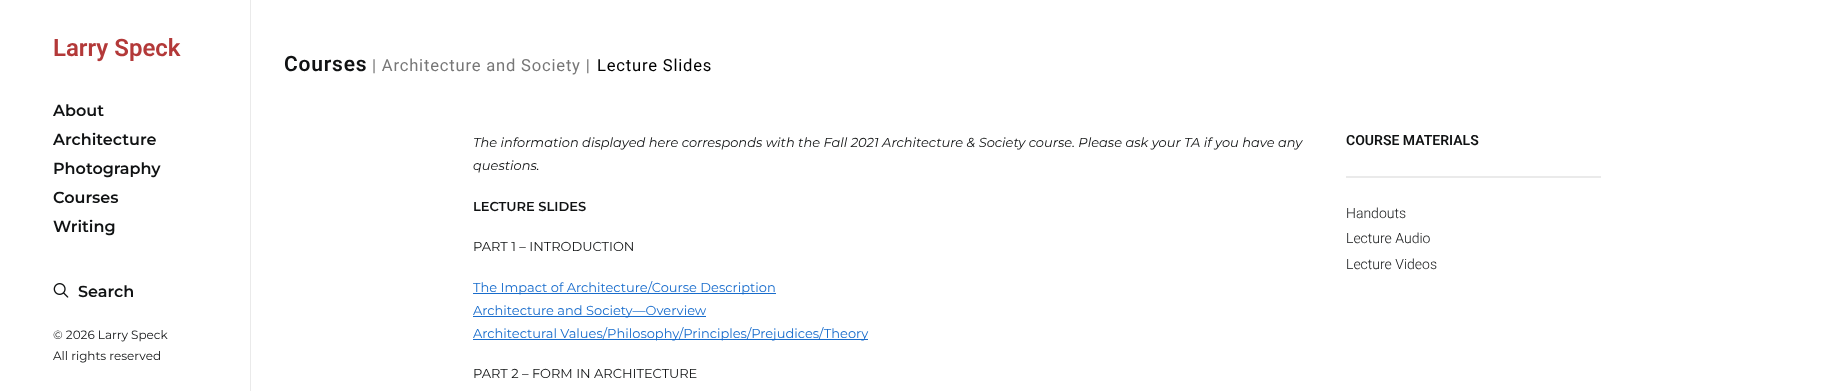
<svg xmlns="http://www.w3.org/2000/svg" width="1822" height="391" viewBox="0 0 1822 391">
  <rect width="100%" height="100%" fill="#fff"/>
  <path d="M250 0h1v391H250z" fill="#eaeaea"/>
  <image x="53" y="283" width="16" height="15" href="img/1.png"/>
  <path d="M473 293h303v1H473z" fill="#186ccc"/>
  <path d="M473 316h233v1H473z" fill="#186ccc"/>
  <path d="M473 339h395v1H473z" fill="#186ccc"/>
  <path d="M1346 176h255v2H1346z" fill="#eaeaea"/>
  <text x="53" y="56" font-family="Roboto" font-size="24" font-weight="600" fill="#b33939">Larry Speck</text>
  <g font-family="Montserrat" font-size="16" font-weight="600" fill="#101213">
    <text x="53" y="116">About</text>
    <text x="53" y="145">Architecture</text>
    <text x="53" y="174">Photography</text>
    <text x="53" y="203">Courses</text>
    <text x="53" y="232">Writing</text>
    <text x="78" y="297">Search</text>
  </g>
  <g font-family="Montserrat" font-size="12" fill="#101213">
    <text x="53" y="339">© 2026 Larry Speck</text>
    <text x="53" y="360">All rights reserved</text>
  </g>
  <text x="284" y="71" font-family="Roboto" font-size="21" font-weight="600" letter-spacing="0.8" fill="#101213">Courses</text>
  <text x="372" y="71" font-family="Roboto" font-size="16.6" letter-spacing="0.8" fill="#777">| Architecture and Society |</text>
  <text x="597" y="71" font-family="Roboto" font-size="16.6" letter-spacing="0.8" fill="#000">Lecture Slides</text>
  <g font-family="Montserrat" font-size="13" font-style="italic" fill="#101213">
    <text x="473" y="147">The information displayed here corresponds with the Fall 2021 Architecture &amp; Society course. Please ask your TA if you have any</text>
    <text x="473" y="170">questions.</text>
  </g>
  <text x="473" y="211" font-family="Montserrat" font-size="13" font-weight="600" fill="#101213">LECTURE SLIDES</text>
  <text x="473" y="251" font-family="Montserrat" font-size="13" fill="#101213">PART 1 – INTRODUCTION</text>
  <g font-family="Montserrat" font-size="13" fill="#186ccc">
    <text x="473" y="292">The Impact of Architecture/Course Description</text>
    <text x="473" y="315">Architecture and Society—Overview</text>
    <text x="473" y="338">Architectural Values/Philosophy/Principles/Prejudices/Theory</text>
  </g>
  <text x="473" y="378" font-family="Montserrat" font-size="13" fill="#101213">PART 2 – FORM IN ARCHITECTURE</text>
  <text x="1346" y="145" font-family="Roboto" font-size="14" font-weight="600" fill="#101213">COURSE MATERIALS</text>
  <g font-family="Roboto" font-size="14" font-weight="300" fill="#101213">
    <text x="1346" y="218">Handouts</text>
    <text x="1346" y="243">Lecture Audio</text>
    <text x="1346" y="269">Lecture Videos</text>
  </g>
</svg>
